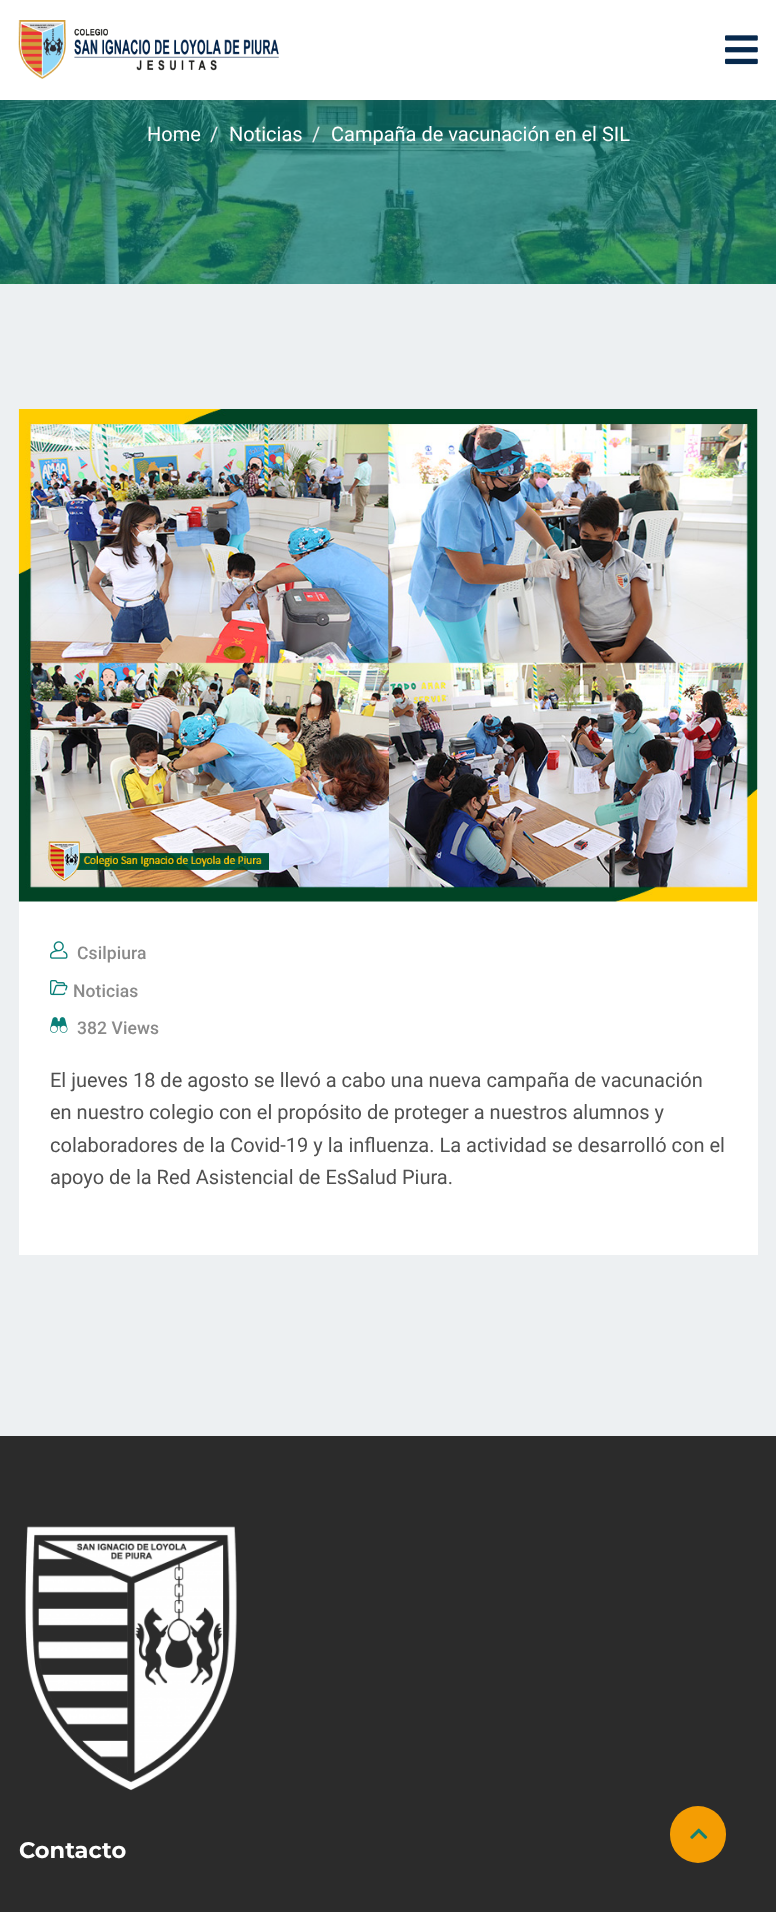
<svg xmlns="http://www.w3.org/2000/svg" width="776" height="1912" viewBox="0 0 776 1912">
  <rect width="100%" height="100%" fill="#edf0f2"/>
  <image x="0" y="100" width="776" height="184" href="img/3.png"/>
  <path d="M0 4h776v100H0z" fill="#8080801a" filter="blur(4px)"/>
  <path d="M0 0h776v100H0z" fill="#fff"/>
  <image x="18" y="20" width="261" height="59" href="img/1.png"/>
  <image x="725" y="35" width="33" height="30" href="img/2.png"/>
  <path d="M19 409h739v846H19z" fill="#fff"/>
  <image x="18" y="409" width="740" height="493" href="img/4.png"/>
  <image x="50" y="941" width="18" height="18" href="img/5.png"/>
  <image x="50" y="980" width="18" height="16" href="img/6.png"/>
  <image x="50" y="1017" width="18" height="16" href="img/7.png"/>
  <path d="M0 1436h776v476H0z" fill="#2b2b2b"/>
  <image x="25" y="1526" width="212" height="265" href="img/8.png"/>
  <rect x="670" y="1806" width="56" height="57" rx="28" fill="#f49d03"/>
  <image x="690" y="1828" width="18" height="11" href="img/9.png"/>
  <text x="147" y="141" font-family="Roboto" font-size="20" fill="#fff">Home</text>
  <text x="210" y="141" font-family="Roboto" font-size="20" fill="#edf0f2">/</text>
  <text x="229" y="141" font-family="Roboto" font-size="20" fill="#fff">Noticias</text>
  <text x="312" y="141" font-family="Roboto" font-size="20" fill="#edf0f2">/</text>
  <text x="331" y="141" font-family="Roboto" font-size="20" fill="#fff">Campaña de vacunación en el SIL</text>
  <g font-family="Roboto" font-size="17.5" font-weight="500" letter-spacing="0.1" fill="#8a8a8a">
    <text x="77" y="959">Csilpiura</text>
    <text x="73" y="997">Noticias</text>
    <text x="77" y="1034">382 Views</text>
  </g>
  <g font-family="Roboto" font-size="20" fill="#505050">
    <text x="50" y="1087">El jueves 18 de agosto se llevó a cabo una nueva campaña de vacunación</text>
    <text x="50" y="1119">en nuestro colegio con el propósito de proteger a nuestros alumnos y</text>
    <text x="50" y="1152">colaboradores de la Covid-19 y la influenza. La actividad se desarrolló con el</text>
    <text x="50" y="1184">apoyo de la Red Asistencial de EsSalud Piura.</text>
  </g>
  <text x="19" y="1858" font-family="Montserrat" font-size="22.5" font-weight="bold" fill="#fff">Contacto</text>
</svg>
